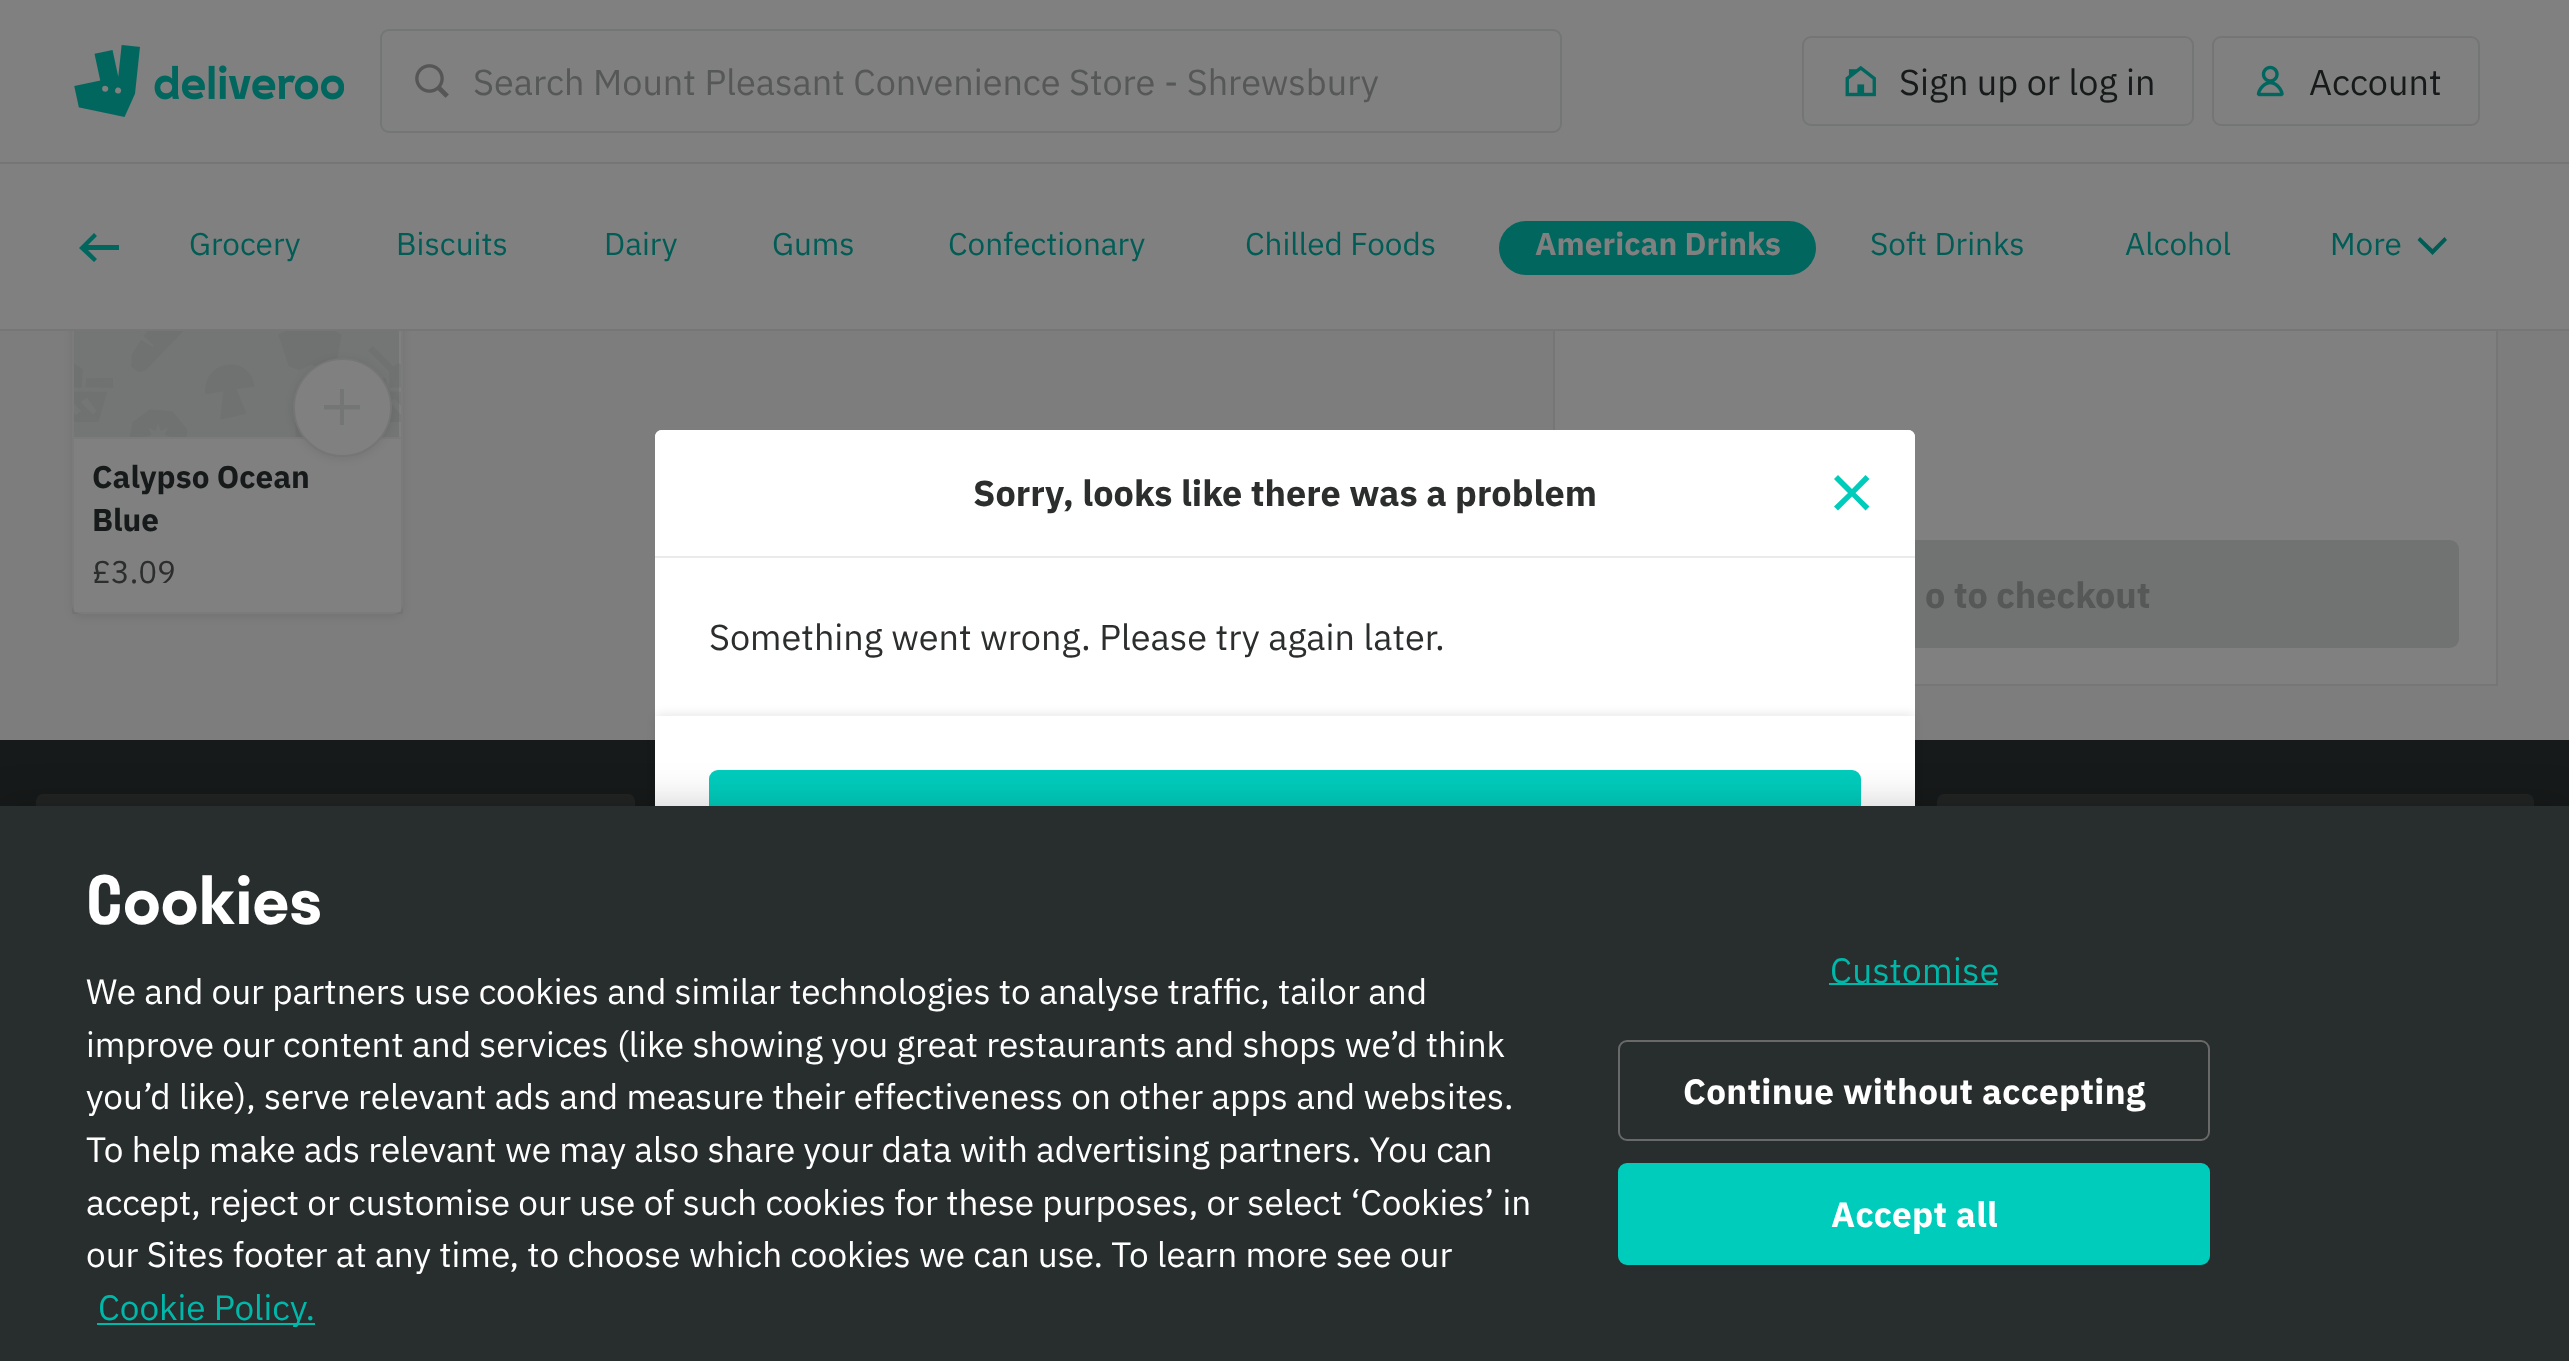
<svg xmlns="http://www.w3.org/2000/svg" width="2569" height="1361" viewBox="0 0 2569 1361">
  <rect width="100%" height="100%" fill="#7d7d7d"/>
  <rect x="72" y="113" width="331" height="504" rx="9" fill="#00000014" filter="blur(4.5px)"/>
  <rect x="72" y="110" width="331" height="504" rx="9" fill="#808080"/>
  <path d="M73 111h329v502H73z" fill="none" stroke="#0000000a" stroke-width="2"/>
  <path d="M1555 331h941v353H1555z" fill="#808080"/>
  <path d="M1554 -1h943v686H1554z" fill="none" stroke="#767676" stroke-width="2"/>
  <path d="M0 0h2569v162H0z" fill="#808080"/>
  <path d="M0 162h2569v2H0z" fill="#767676"/>
  <image x="74" y="45" width="270" height="72" href="img/1.png"/>
  <rect x="381" y="30" width="1180" height="102" rx="8" fill="none" stroke="#747676" stroke-width="2"/>
  <image x="415" y="64" width="34" height="34" href="img/2.png"/>
  <rect x="1803" y="37" width="390" height="88" rx="8" fill="none" stroke="#747676" stroke-width="2"/>
  <image x="1845" y="65" width="31" height="32" href="img/3.png"/>
  <rect x="2213" y="37" width="266" height="88" rx="8" fill="none" stroke="#747676" stroke-width="2"/>
  <image x="2256" y="65" width="28" height="32" href="img/4.png"/>
  <path d="M0 164h2569v165H0z" fill="#808080"/>
  <path d="M0 329h2569v2H0z" fill="#767676"/>
  <path d="M94 233L97 236L88 245H119V250H88L97 259L94 262L79 248Z" fill="#00665e"/>
  <rect x="1499" y="221" width="317" height="54" rx="27" fill="#00665e"/>
  <path d="M2420 237L2417.5 240L2432.5 255L2447 240L2444.5 237L2432.5 249Z" fill="#005c55"/>
  <path d="M74 437h327v2H74z" fill="#7b7b7b"/>
  <image x="74" y="331" width="327" height="106" href="img/5.png"/>
  <rect x="293" y="360" width="99" height="99" rx="49.5" fill="#00000014" filter="blur(4.5px)"/>
  <circle cx="342.5" cy="407.5" r="49.5" fill="#808080"/>
  <circle cx="342.5" cy="407.5" r="48.5" fill="none" stroke="#00000014" stroke-width="2"/>
  <path d="M340 405H324V409.5H340V425H344V409.5H360V405H344V389H340Z" fill="#747676"/>
  <rect x="1591" y="540" width="868" height="108" rx="9" fill="#717373"/>
  <path d="M0 740h2569v66H0z" fill="#171a1a"/>
  <rect x="36" y="794" width="599" height="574" rx="7" fill="#222424"/>
  <rect x="1937" y="794" width="597" height="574" rx="7" fill="#222424"/>
  <rect x="655" y="430" width="1260" height="502" rx="7" fill="#fff"/>
  <path d="M662 430H1908C1912 430 1915 433 1915 437V558H655V437C655 433 658 430 662 430Z" fill="#fff"/>
  <path d="M655 556h1260v2H655z" fill="#ebebeb"/>
  <path d="M1852 489L1838 475L1834 479L1848 493L1834 506.5L1838 510.5L1852 496.5L1865.5 510.5L1869.5 506.5L1855.5 493L1869.5 479L1865.5 475Z" fill="#00ccbc"/>
  <rect x="655" y="713" width="1260" height="216" rx="7" fill="#00000014" filter="blur(4.5px)"/>
  <path d="M655 716h1260v90H655z" fill="#fff"/>
  <rect x="709" y="770" width="1152" height="108" rx="9" fill="#00ccbc"/>
  <path d="M0 806h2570v555H0z" fill="#00000033" filter="blur(20px)"/>
  <path d="M0 806h2569v555H0z" fill="#282d2d"/>
  <path d="M97 1323h218v2H97z" fill="#00b8a9"/>
  <path d="M1829 983h169v2H1829z" fill="#00b8a9"/>
  <rect x="1619" y="1041" width="590" height="99" rx="8" fill="none" stroke="#696969" stroke-width="2"/>
  <rect x="1619" y="1164" width="590" height="100" rx="8" fill="#00ccbc" stroke="#00ccbc" stroke-width="2"/>
  <text x="473" y="95" font-family="IBM Plex Sans" font-size="36" fill="#565757">Search Mount Pleasant Convenience Store - Shrewsbury</text>
  <g font-family="IBM Plex Sans" font-size="36" fill="#171a1a">
    <text x="1899" y="95">Sign up or log in</text>
    <text x="2309" y="95">Account</text>
  </g>
  <g font-family="IBM Plex Sans" font-size="31.5" fill="#005c55">
    <text x="189" y="255">Grocery</text>
    <text x="396" y="255">Biscuits</text>
    <text x="604" y="255">Dairy</text>
    <text x="772" y="255">Gums</text>
    <text x="948" y="255">Confectionary</text>
    <text x="1245" y="255">Chilled Foods</text>
  </g>
  <text x="1535" y="255" font-family="IBM Plex Sans" font-size="31.5" font-weight="bold" fill="#808080">American Drinks</text>
  <g font-family="IBM Plex Sans" font-size="31.5" fill="#005c55">
    <text x="1870" y="255">Soft Drinks</text>
    <text x="2125" y="255">Alcohol</text>
    <text x="2330" y="255">More</text>
  </g>
  <g font-family="IBM Plex Sans" font-size="31.5" font-weight="bold" fill="#171a1a">
    <text x="92" y="488">Calypso Ocean</text>
    <text x="92" y="531">Blue</text>
  </g>
  <text x="92" y="583" font-family="IBM Plex Sans" font-size="31.5" fill="#2c2e2e">£3.09</text>
  <text x="1925" y="608" font-family="IBM Plex Sans" font-size="36" font-weight="bold" fill="#565757">o to checkout</text>
  <text x="973" y="506" font-family="IBM Plex Sans" font-size="36" font-weight="bold" fill="#2c2e2e">Sorry, looks like there was a problem</text>
  <text x="709" y="650" font-family="IBM Plex Sans" font-size="36" fill="#2c2e2e">Something went wrong. Please try again later.</text>
  <text x="86" y="924" font-family="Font" font-size="65" font-weight="600" fill="#fff">Cookies</text>
  <g font-family="IBM Plex Sans" font-size="35.1" fill="#fff">
    <text x="86" y="1004">We and our partners use cookies and similar technologies to analyse traffic, tailor and</text>
    <text x="86" y="1057">improve our content and services (like showing you great restaurants and shops we’d think</text>
    <text x="86" y="1109">you’d like), serve relevant ads and measure their effectiveness on other apps and websites.</text>
    <text x="86" y="1162">To help make ads relevant we may also share your data with advertising partners. You can</text>
    <text x="86" y="1215">accept, reject or customise our use of such cookies for these purposes, or select ‘Cookies’ in</text>
    <text x="86" y="1267">our Sites footer at any time, to choose which cookies we can use. To learn more see our</text>
  </g>
  <text x="98" y="1320" font-family="IBM Plex Sans" font-size="35.1" fill="#00b8a9">Cookie Policy.</text>
  <text x="1830" y="983" font-family="IBM Plex Sans" font-size="35.1" letter-spacing="0.35" fill="#00b8a9">Customise</text>
  <g font-family="IBM Plex Sans" font-size="35.1" font-weight="bold" letter-spacing="0.35" fill="#fff">
    <text x="1683" y="1104">Continue without accepting</text>
    <text x="1831" y="1227">Accept all</text>
  </g>
</svg>
